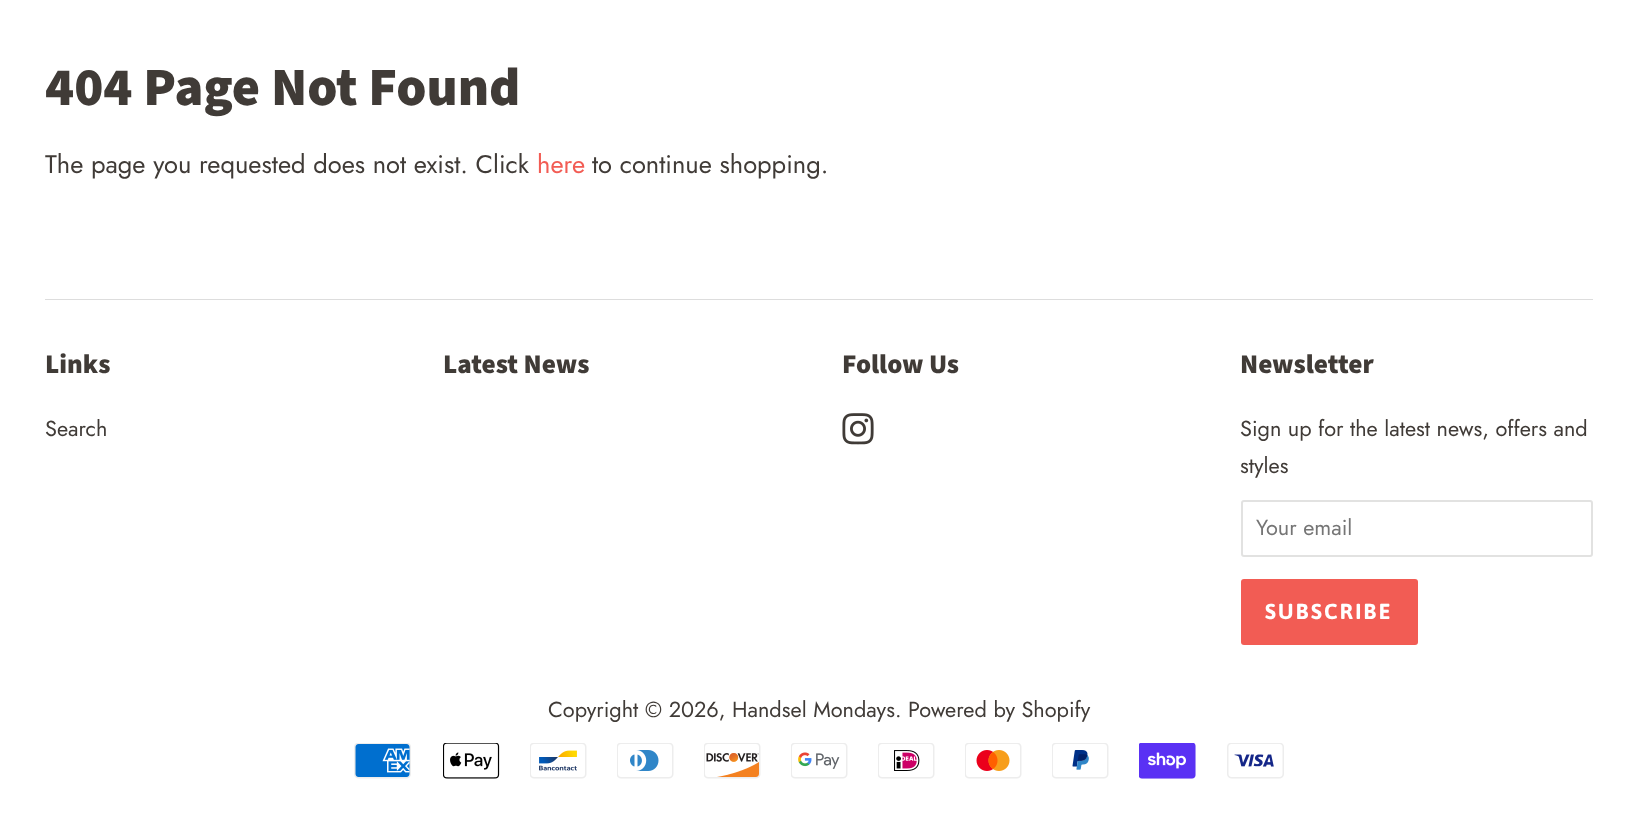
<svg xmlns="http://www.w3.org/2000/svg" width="1637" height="831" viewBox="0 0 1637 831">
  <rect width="100%" height="100%" fill="#fff"/>
  <path d="M45 299h1548v1H45z" fill="#ddd"/>
  <image x="842" y="413" width="32" height="32" href="img/1.png"/>
  <rect x="1242" y="501" width="350" height="55" rx="2" fill="none" stroke="#e2e2e1" stroke-width="2"/>
  <rect x="1241" y="579" width="177" height="66" rx="3" fill="#f25c54"/>
  <image x="354" y="743" width="57" height="36" href="img/2.png"/>
  <image x="443" y="743" width="57" height="36" href="img/3.png"/>
  <image x="530" y="743" width="57" height="36" href="img/4.png"/>
  <image x="617" y="743" width="57" height="36" href="img/5.png"/>
  <image x="704" y="743" width="57" height="36" href="img/6.png"/>
  <image x="791" y="743" width="57" height="36" href="img/7.png"/>
  <image x="878" y="743" width="57" height="36" href="img/8.png"/>
  <image x="965" y="743" width="57" height="36" href="img/9.png"/>
  <image x="1052" y="743" width="57" height="36" href="img/10.png"/>
  <image x="1139" y="743" width="57" height="36" href="img/11.png"/>
  <image x="1227" y="743" width="57" height="36" href="img/12.png"/>
  <text x="45" y="105" font-family="Source Sans Pro" font-size="54" font-weight="900" fill="#403b37">404 Page Not Found</text>
  <text x="45" y="173" font-family="Jost" font-size="25.5" fill="#403b37">The page you requested does not exist. Click</text>
  <text x="537" y="173" font-family="Jost" font-size="25.5" fill="#f25c54">here</text>
  <text x="592" y="173" font-family="Jost" font-size="25.5" fill="#403b37">to continue shopping.</text>
  <text x="45" y="373" font-family="Source Sans Pro" font-size="27" font-weight="900" fill="#403b37">Links</text>
  <text x="45" y="436" font-family="Jost" font-size="21.7" fill="#403b37">Search</text>
  <g font-family="Source Sans Pro" font-size="27" font-weight="900" fill="#403b37">
    <text x="443" y="373">Latest News</text>
    <text x="842" y="373">Follow Us</text>
    <text x="1240" y="373">Newsletter</text>
  </g>
  <g font-family="Jost" font-size="21.7" fill="#403b37">
    <text x="1240" y="436">Sign up for the latest news, offers and</text>
    <text x="1240" y="473">styles</text>
  </g>
  <text x="1256" y="535" font-family="Jost" font-size="21.7" fill="#757575">Your email</text>
  <text x="1265" y="619" font-family="Asap" font-size="21.7" font-weight="bold" letter-spacing="2.25" fill="#fff">SUBSCRIBE</text>
  <text x="548" y="717" font-family="Jost" font-size="21.7" fill="#403b37">Copyright © 2026, Handsel Mondays. Powered by Shopify</text>
</svg>
